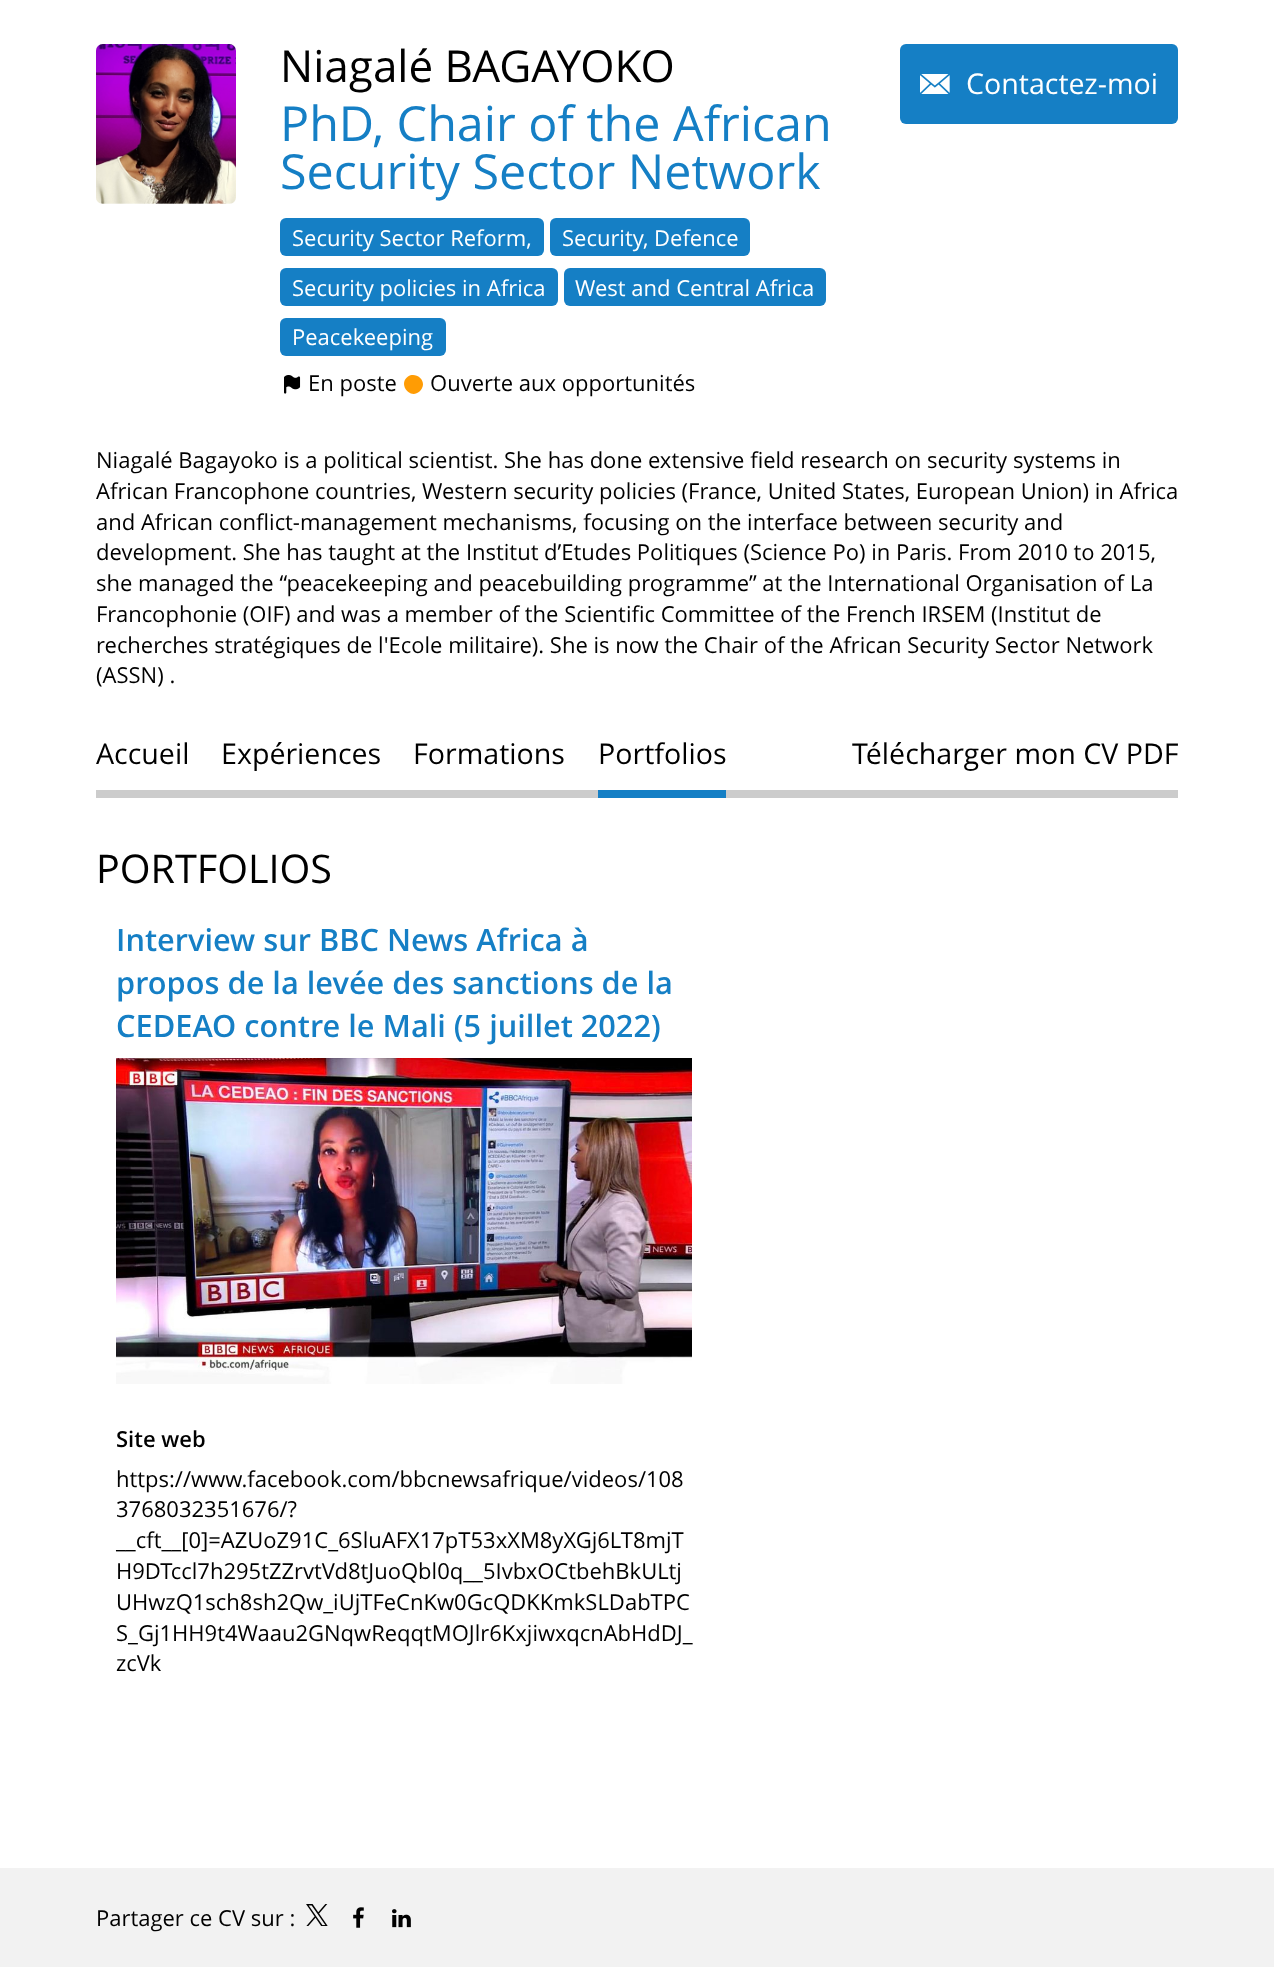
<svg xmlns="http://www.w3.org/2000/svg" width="1274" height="1967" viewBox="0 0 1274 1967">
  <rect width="100%" height="100%" fill="#fff"/>
  <image x="96" y="44" width="140" height="160" href="img/1.png"/>
  <rect x="280" y="218" width="264" height="38" rx="6" fill="#157fc5"/>
  <rect x="550" y="218" width="200" height="38" rx="6" fill="#157fc5"/>
  <rect x="280" y="268" width="278" height="38" rx="6" fill="#157fc5"/>
  <rect x="564" y="268" width="262" height="38" rx="6" fill="#157fc5"/>
  <rect x="280" y="318" width="166" height="38" rx="6" fill="#157fc5"/>
  <image x="284" y="375" width="17" height="19" href="img/2.png"/>
  <path d="M423 384.5C423 387 421.5 389.5 419.5 391.5C410 400 397.5 384 408 376.5C414 372.5 423 377 423 384.5Z" fill="#ff9c04"/>
  <rect x="900" y="44" width="278" height="80" rx="6" fill="#157fc5"/>
  <image x="920" y="74" width="30" height="20" href="img/3.png"/>
  <path d="M96 790h1082v8H96z" fill="#ccc"/>
  <path d="M598 790h128v8H598z" fill="#157fc5"/>
  <image x="116" y="1058" width="576" height="326" href="img/4.png"/>
  <path d="M0 1868h1274v99H0z" fill="#f2f2f2"/>
  <image x="306" y="1904" width="22" height="22" href="img/5.png"/>
  <image x="353" y="1907" width="11" height="21" href="img/6.png"/>
  <image x="392" y="1909" width="19" height="19" href="img/7.png"/>
  <text x="280" y="82" font-family="Open Sans" font-size="44" fill="#000">Niagalé BAGAYOKO</text>
  <g font-family="Open Sans" font-size="48.4" fill="#157fc5">
    <text x="280" y="141">PhD, Chair of the African</text>
    <text x="280" y="189">Security Sector Network</text>
  </g>
  <g font-family="Open Sans" font-size="22" fill="#fff">
    <text x="292" y="246">Security Sector Reform,</text>
    <text x="562" y="246">Security, Defence</text>
    <text x="292" y="296">Security policies in Africa</text>
    <text x="575" y="296">West and Central Africa</text>
    <text x="292" y="345">Peacekeeping</text>
  </g>
  <g font-family="Open Sans" font-size="22" fill="#000">
    <text x="308" y="391">En poste</text>
    <text x="430" y="391">Ouverte aux opportunités</text>
  </g>
  <text x="966" y="94" font-family="Open Sans" font-size="28.6" fill="#fff">Contactez-moi</text>
  <g font-family="Open Sans" font-size="22" fill="#000">
    <text x="96" y="468">Niagalé Bagayoko is a political scientist. She has done extensive field research on security systems in</text>
    <text x="96" y="499">African Francophone countries, Western security policies (France, United States, European Union) in Africa</text>
    <text x="96" y="530">and African conflict-management mechanisms, focusing on the interface between security and</text>
    <text x="96" y="560">development. She has taught at the Institut d’Etudes Politiques (Science Po) in Paris. From 2010 to 2015,</text>
    <text x="96" y="591">she managed the “peacekeeping and peacebuilding programme” at the International Organisation of La</text>
    <text x="96" y="622">Francophonie (OIF) and was a member of the Scientific Committee of the French IRSEM (Institut de</text>
    <text x="96" y="653">recherches stratégiques de l'Ecole militaire). She is now the Chair of the African Security Sector Network</text>
    <text x="96" y="683">(ASSN) .</text>
  </g>
  <g font-family="Open Sans" font-size="28.6" fill="#000">
    <text x="96" y="764">Accueil</text>
    <text x="221" y="764">Expériences</text>
    <text x="413" y="764">Formations</text>
    <text x="598" y="764">Portfolios</text>
    <text x="852" y="764">Télécharger mon CV PDF</text>
  </g>
  <text x="96" y="883" font-family="Open Sans" font-size="39.5" fill="#000">PORTFOLIOS</text>
  <g font-family="Open Sans" font-size="30.75" font-weight="600" fill="#157fc5">
    <text x="116" y="951">Interview sur BBC News Africa à</text>
    <text x="116" y="994">propos de la levée des sanctions de la</text>
    <text x="116" y="1037">CEDEAO contre le Mali (5 juillet 2022)</text>
  </g>
  <text x="116" y="1447" font-family="Open Sans" font-size="22" font-weight="600" fill="#000">Site web</text>
  <g font-family="Open Sans" font-size="22" fill="#000">
    <text x="116" y="1487">https://www.facebook.com/bbcnewsafrique/videos/108</text>
    <text x="116" y="1517">3768032351676/?</text>
    <text x="116" y="1548">__cft__[0]=AZUoZ91C_6SluAFX17pT53xXM8yXGj6LT8mjT</text>
    <text x="116" y="1579">H9DTccl7h295tZZrvtVd8tJuoQbl0q__5IvbxOCtbehBkULtj</text>
    <text x="116" y="1610">UHwzQ1sch8sh2Qw_iUjTFeCnKw0GcQDKKmkSLDabTPC</text>
    <text x="116" y="1641">S_Gj1HH9t4Waau2GNqwReqqtMOJlr6KxjiwxqcnAbHdDJ_</text>
    <text x="116" y="1671">zcVk</text>
    <text x="96" y="1926">Partager ce CV sur :</text>
  </g>
</svg>
